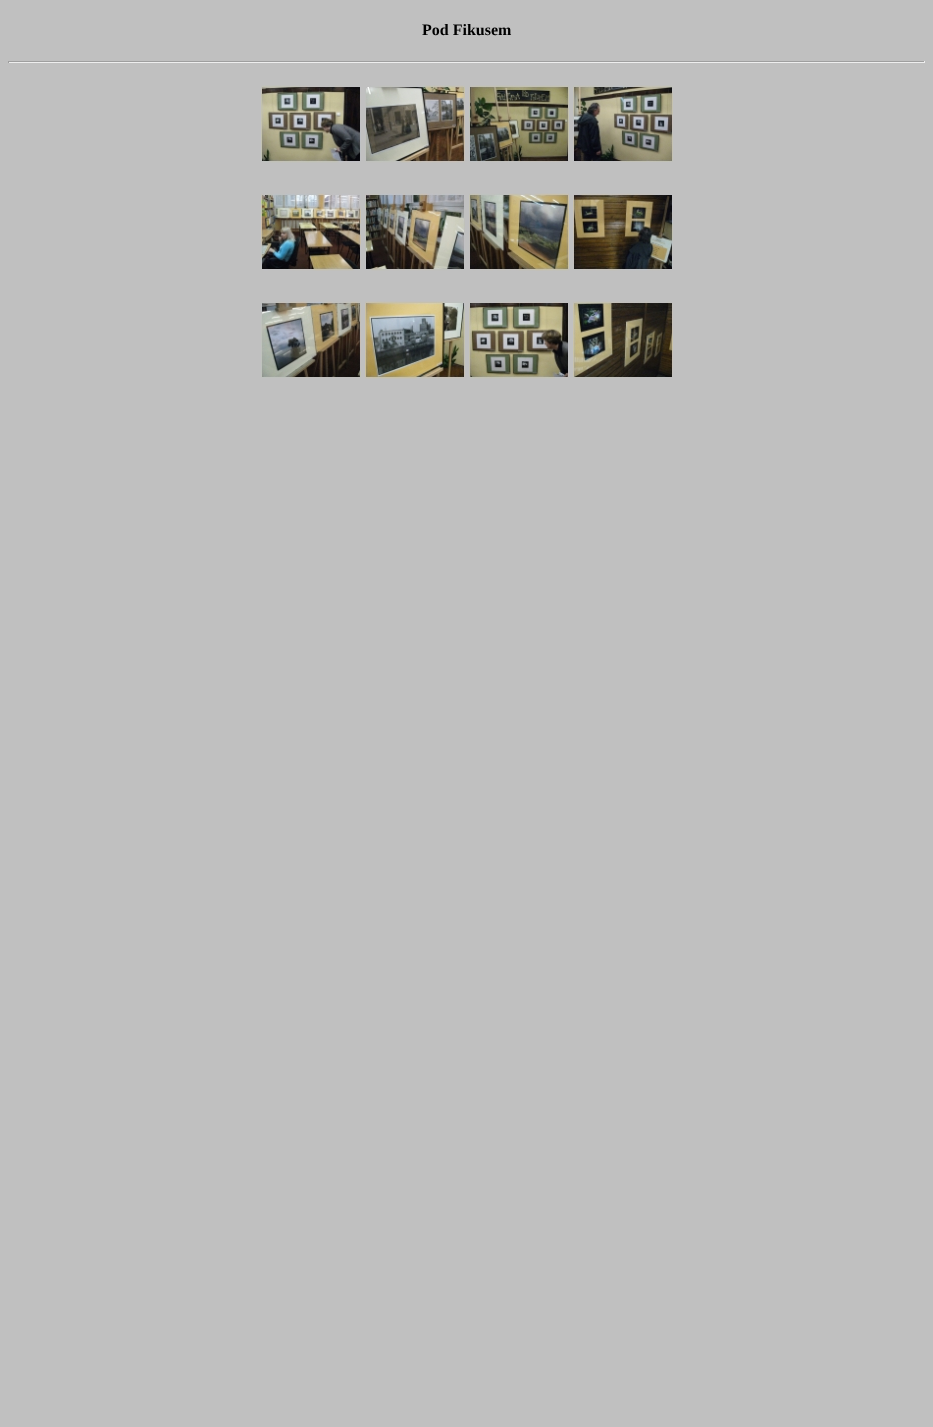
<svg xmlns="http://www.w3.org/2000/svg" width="933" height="1427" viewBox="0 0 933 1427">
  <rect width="100%" height="100%" fill="#c0c0c0"/>
  <path d="M8 61h917v1H8z" fill="#9f9f9f"/>
  <path d="M924 61h1v2H924z" fill="#eee"/>
  <path d="M8 62h917v1H8z" fill="#eee"/>
  <path d="M8 61h1v2H8z" fill="#9f9f9f"/>
  <image x="261" y="85" width="100" height="78" href="img/1.png"/>
  <image x="365" y="85" width="100" height="78" href="img/2.png"/>
  <image x="469" y="85" width="100" height="77" href="img/3.png"/>
  <image x="573" y="85" width="100" height="77" href="img/4.png"/>
  <image x="261" y="193" width="100" height="78" href="img/5.png"/>
  <image x="365" y="193" width="100" height="78" href="img/6.png"/>
  <image x="469" y="193" width="100" height="78" href="img/7.png"/>
  <image x="573" y="193" width="100" height="78" href="img/8.png"/>
  <image x="261" y="301" width="100" height="77" href="img/9.png"/>
  <image x="365" y="301" width="100" height="78" href="img/10.png"/>
  <image x="469" y="302" width="100" height="77" href="img/11.png"/>
  <image x="573" y="301" width="100" height="77" href="img/12.png"/>
  <text x="422" y="35" font-family="Liberation Serif" font-size="16" font-weight="bold" fill="#000">Pod Fikusem</text>
</svg>
